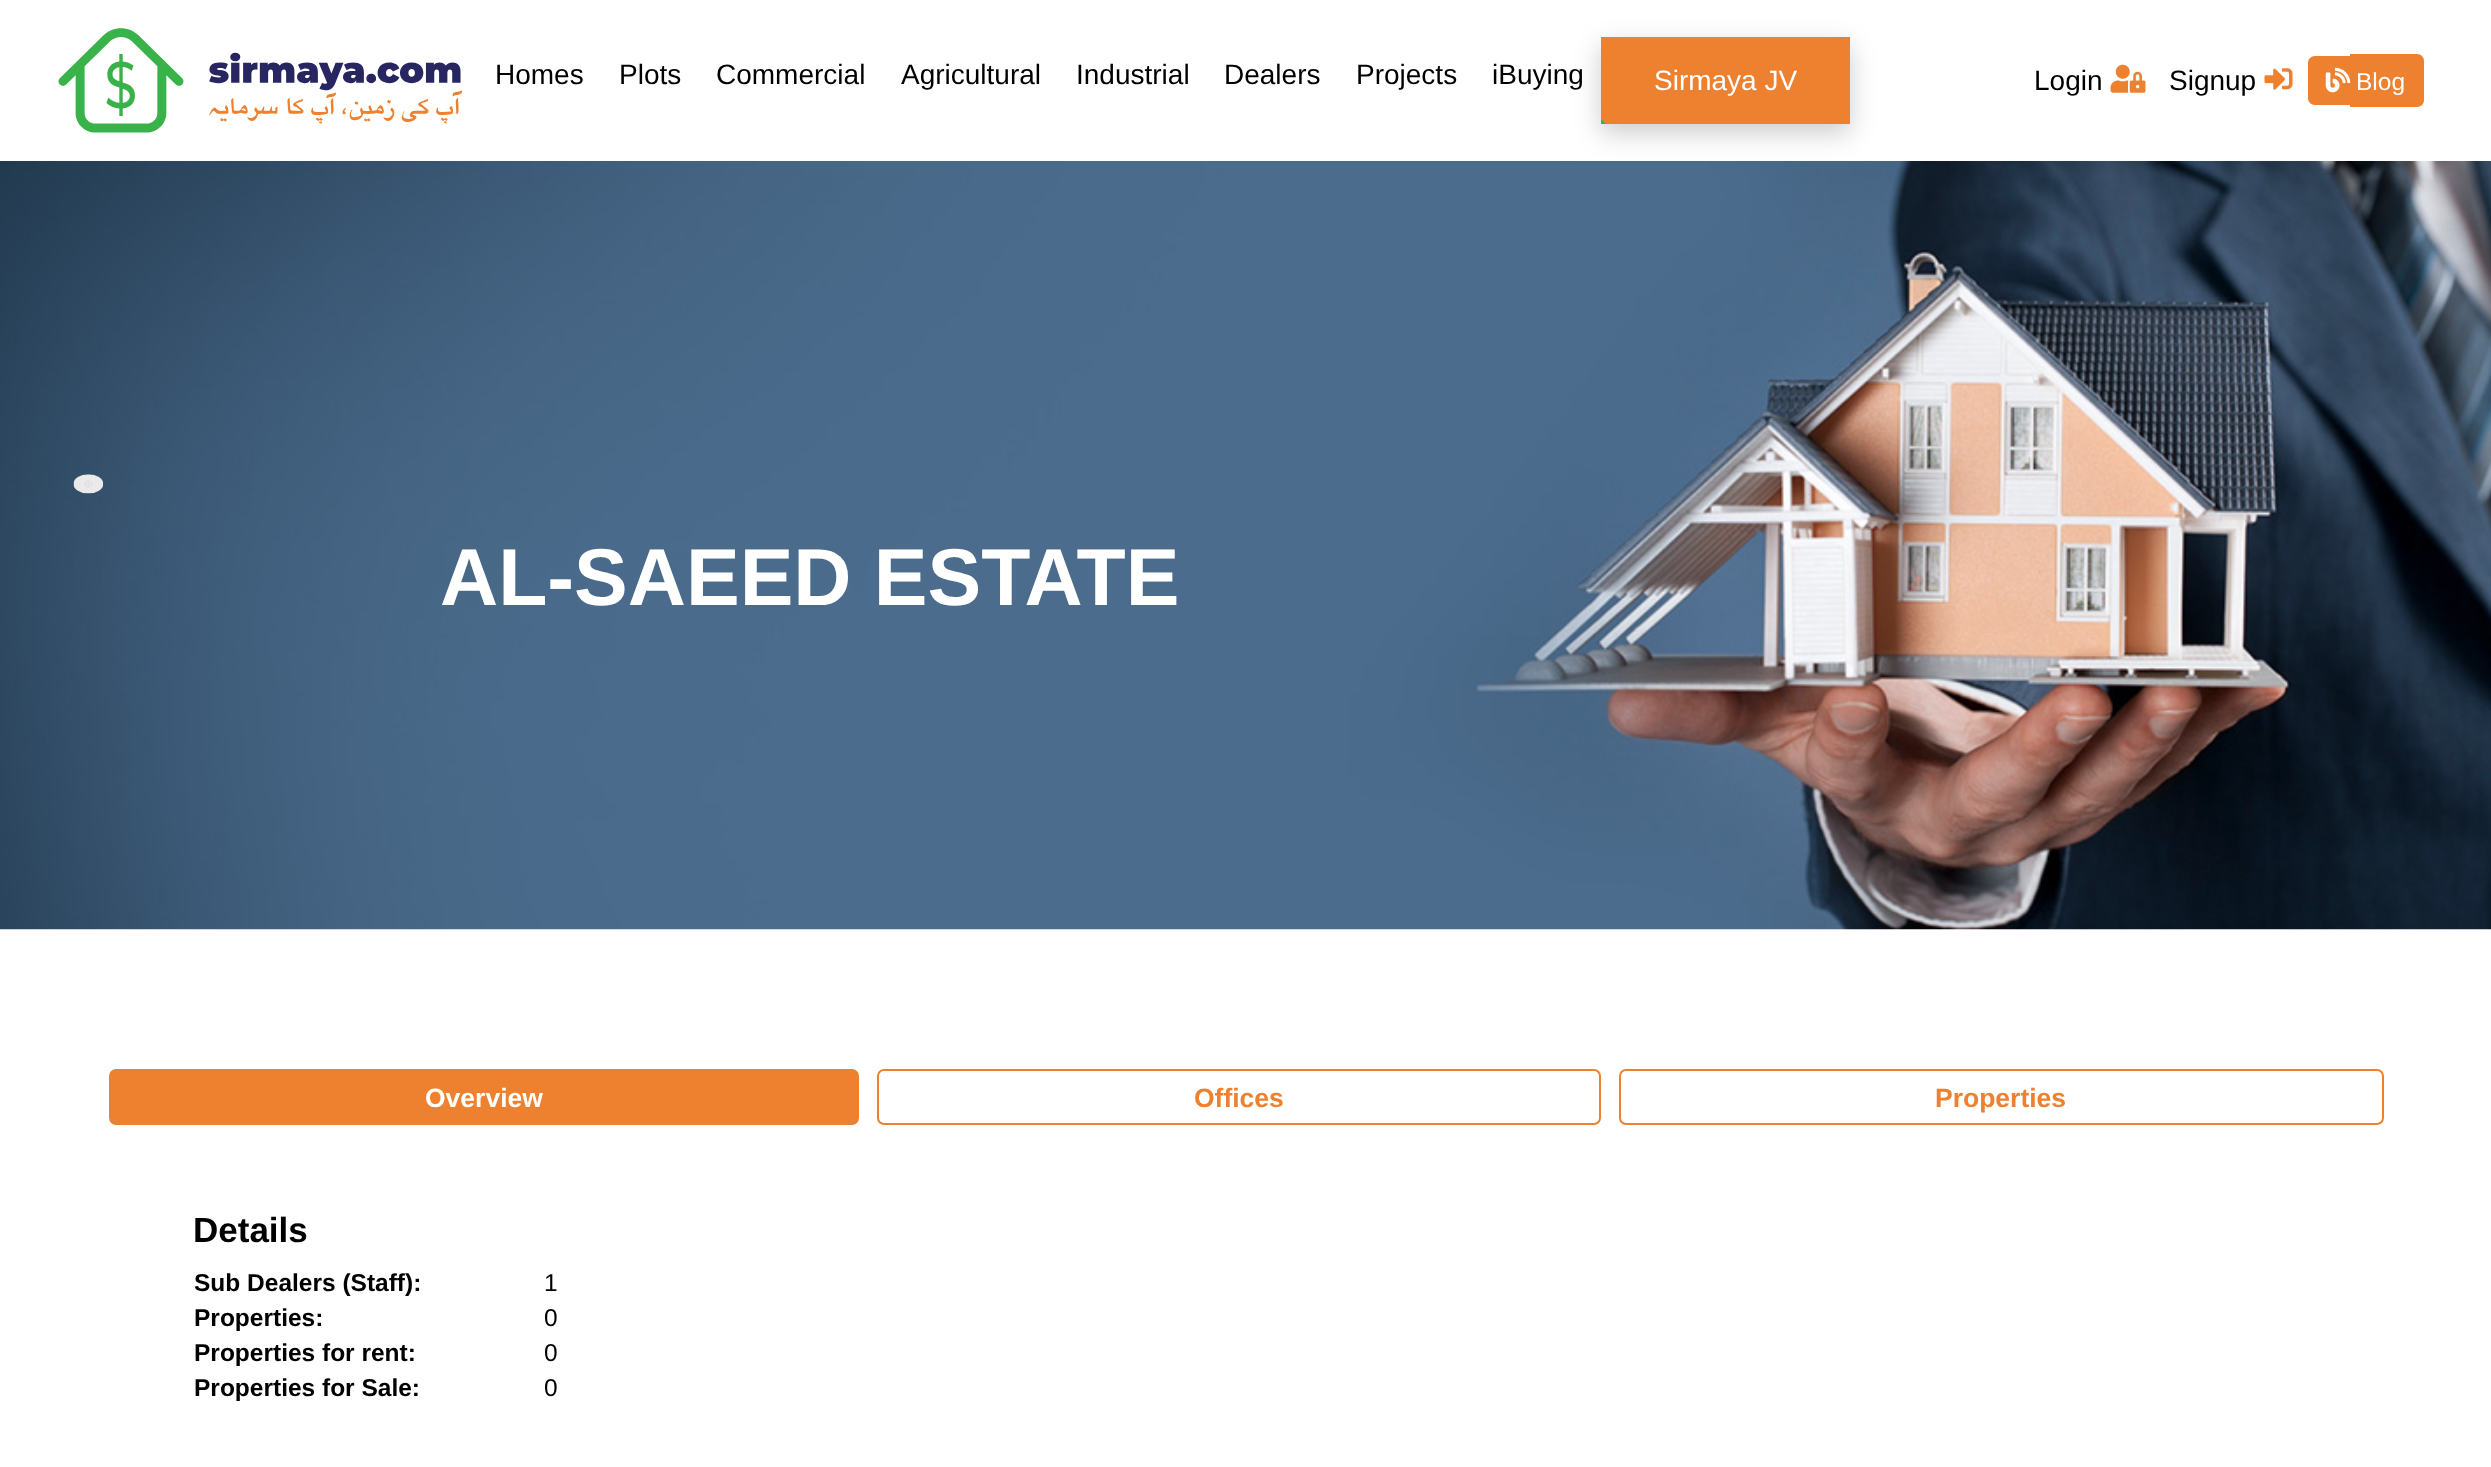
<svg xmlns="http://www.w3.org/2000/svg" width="2491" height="1467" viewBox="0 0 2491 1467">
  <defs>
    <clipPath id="clip1"><path d="M1601 37h249v87H1601z"/></clipPath>
  </defs>
  <rect width="100%" height="100%" fill="#fff"/>
  <image x="58" y="28" width="405" height="105" href="img/1.png"/>
  <image x="0" y="161" width="2491" height="769" href="img/5.png"/>
  <path d="M1601 46h249v87H1601z" fill="#00000033" filter="blur(13px)"/>
  <path d="M1601 37h249v87H1601z" fill="#ee812f"/>
  <g clip-path="url(#clip1)">
    <path d="M1369-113L1650 168L1347 471L1066 191Z" fill="#3ab44a"/>
  </g>
  <image x="2110" y="64" width="36" height="29" href="img/2.png"/>
  <image x="2264" y="68" width="29" height="22" href="img/3.png"/>
  <path d="M2315 56H2350V105H2315C2311 105 2308 102 2308 98V63C2308 59 2311 56 2315 56Z" fill="#ee812f"/>
  <path d="M2350 54H2417C2421 54 2424 57 2424 61V100C2424 104 2421 107 2417 107H2350Z" fill="#ee812f"/>
  <image x="2325" y="67" width="26" height="26" href="img/4.png"/>
  <image x="73" y="474" width="31" height="20" href="img/6.png"/>
  <rect x="110" y="1070" width="748" height="54" rx="6" fill="#ee812f" stroke="#ee812f" stroke-width="2"/>
  <rect x="878" y="1070" width="722" height="54" rx="6" fill="none" stroke="#ee812f" stroke-width="2"/>
  <rect x="1620" y="1070" width="763" height="54" rx="6" fill="none" stroke="#ee812f" stroke-width="2"/>
  <g font-family="Liberation Sans" font-size="28" fill="#000">
    <text x="495" y="84">Homes</text>
    <text x="619" y="84">Plots</text>
    <text x="716" y="84">Commercial</text>
    <text x="901" y="84">Agricultural</text>
    <text x="1076" y="84">Industrial</text>
    <text x="1224" y="84">Dealers</text>
    <text x="1356" y="84">Projects</text>
    <text x="1492" y="84">iBuying</text>
  </g>
  <text x="1654" y="90" font-family="Liberation Sans" font-size="28" fill="#fff">Sirmaya JV</text>
  <g font-family="Liberation Sans" font-size="28" fill="#000">
    <text x="2034" y="90">Login</text>
    <text x="2169" y="90">Signup</text>
  </g>
  <text x="2356" y="90" font-family="Liberation Sans" font-size="24.5" fill="#fff">Blog</text>
  <text x="440" y="605" font-family="Liberation Sans" font-size="80.5" font-weight="bold" fill="#fff">AL-SAEED ESTATE</text>
  <text x="425" y="1107" font-family="Liberation Sans" font-size="26.5" font-weight="bold" fill="#fff">Overview</text>
  <g font-family="Liberation Sans" font-size="26.5" font-weight="bold" fill="#ee812f">
    <text x="1194" y="1107">Offices</text>
    <text x="1935" y="1107">Properties</text>
  </g>
  <text x="193" y="1242" font-family="Liberation Sans" font-size="35" font-weight="bold" fill="#000">Details</text>
  <text x="194" y="1291" font-family="Liberation Sans" font-size="24.5" font-weight="bold" fill="#000">Sub Dealers (Staff):</text>
  <text x="544" y="1291" font-family="Liberation Sans" font-size="24.5" fill="#000">1</text>
  <text x="194" y="1326" font-family="Liberation Sans" font-size="24.5" font-weight="bold" fill="#000">Properties:</text>
  <text x="544" y="1326" font-family="Liberation Sans" font-size="24.5" fill="#000">0</text>
  <text x="194" y="1361" font-family="Liberation Sans" font-size="24.5" font-weight="bold" fill="#000">Properties for rent:</text>
  <text x="544" y="1361" font-family="Liberation Sans" font-size="24.5" fill="#000">0</text>
  <text x="194" y="1396" font-family="Liberation Sans" font-size="24.5" font-weight="bold" fill="#000">Properties for Sale:</text>
  <text x="544" y="1396" font-family="Liberation Sans" font-size="24.5" fill="#000">0</text>
</svg>
